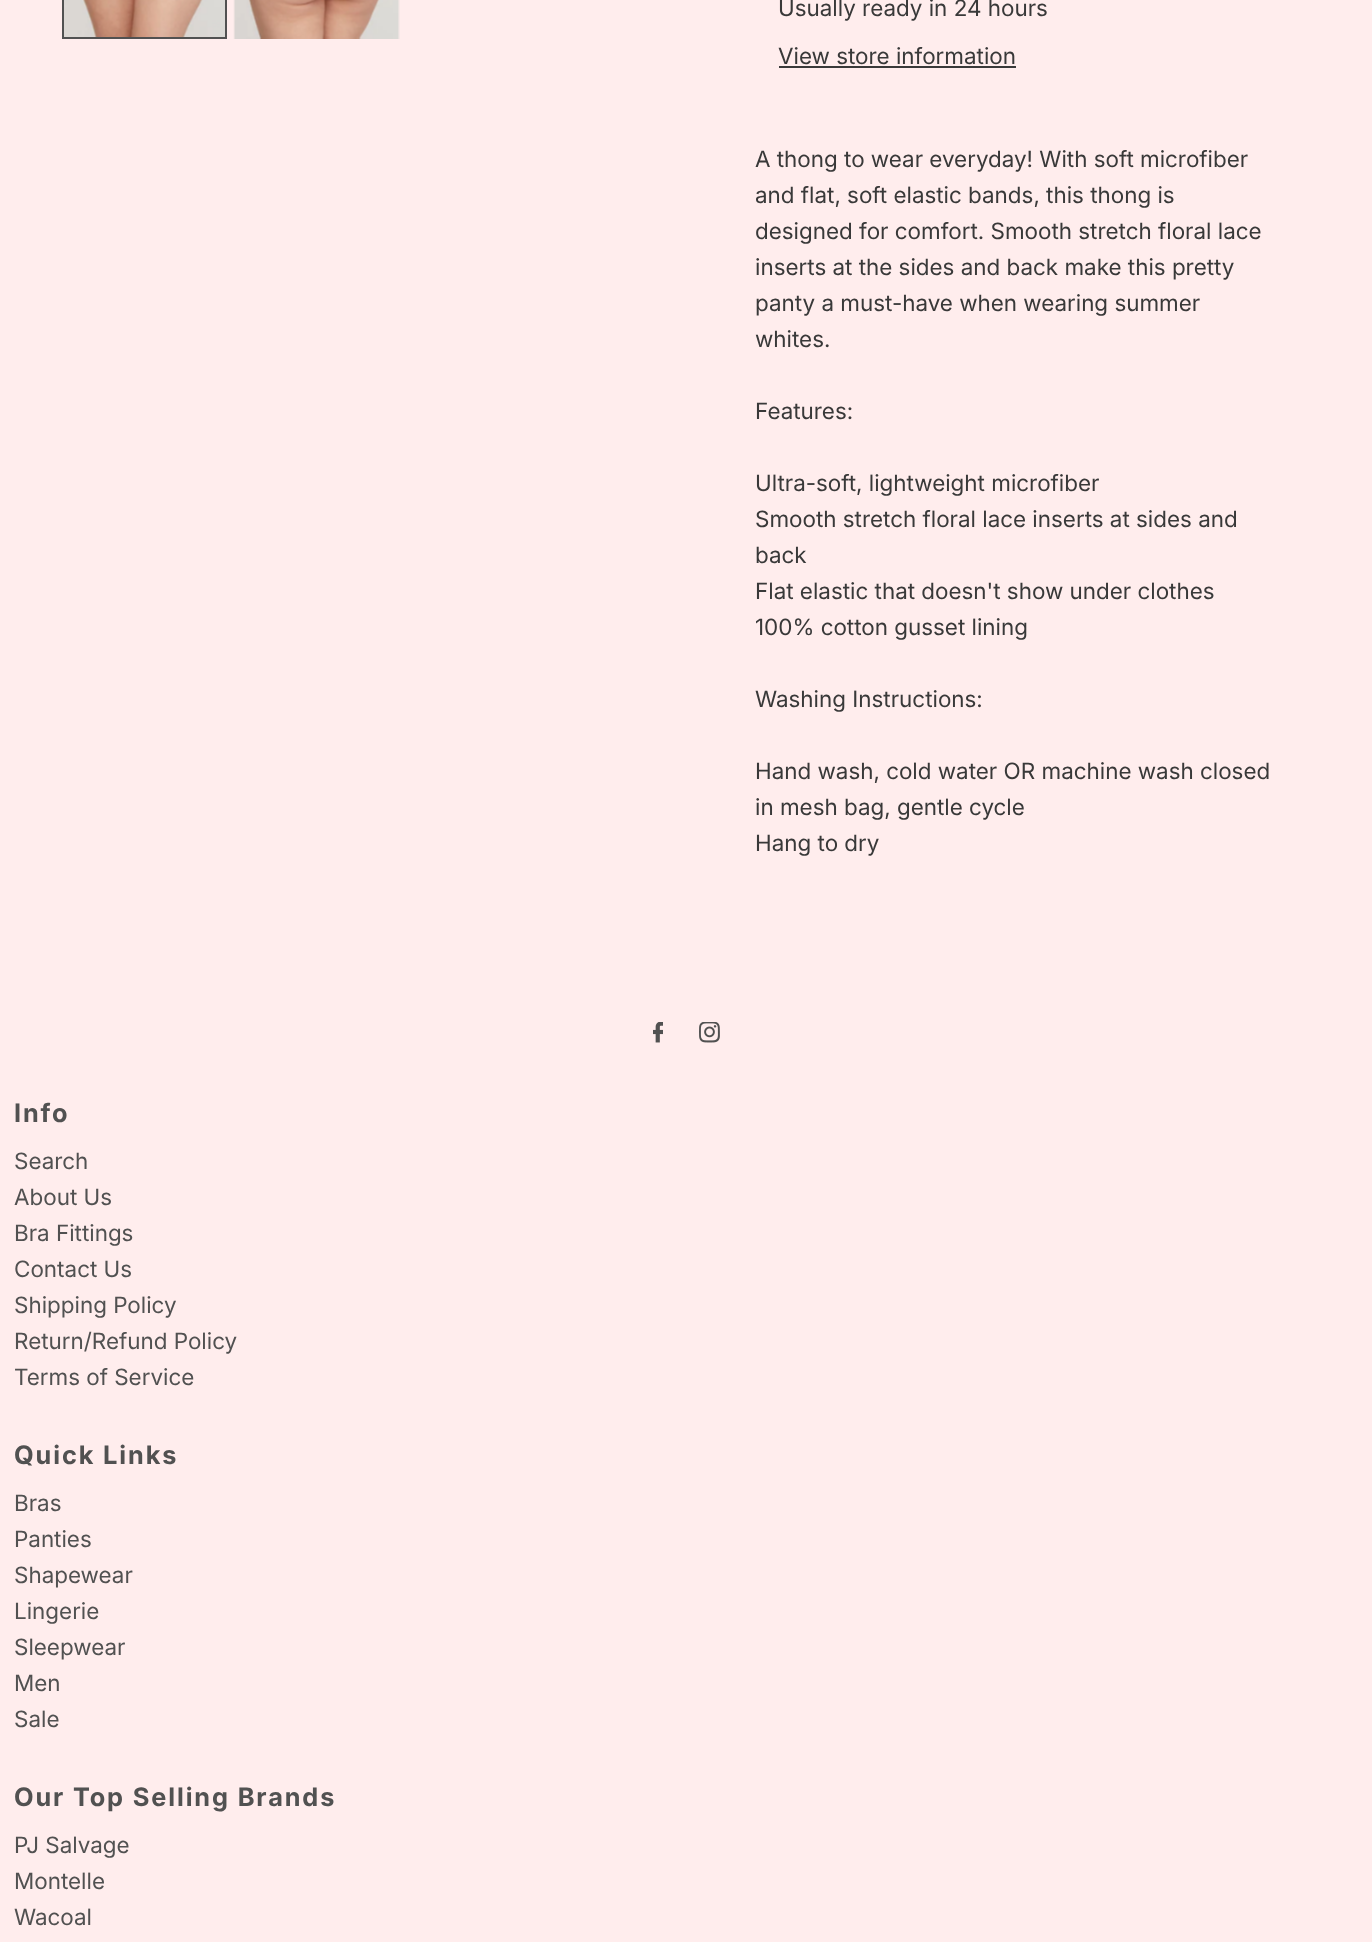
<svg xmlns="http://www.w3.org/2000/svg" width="1372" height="1942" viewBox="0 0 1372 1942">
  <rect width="100%" height="100%" fill="#ffeded"/>
  <image x="64" y="0" width="161" height="37" href="img/1.png"/>
  <path d="M63 -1h163v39H63z" fill="none" stroke="#515151" stroke-width="2"/>
  <image x="233" y="0" width="167" height="39" href="img/2.png"/>
  <path d="M779 66h237v2H779z" fill="#393939"/>
  <image x="653" y="1022" width="10" height="21" href="img/3.png"/>
  <image x="699" y="1022" width="21" height="21" href="img/4.png"/>
  <g font-family="Inter" font-size="22.5" fill="#393939">
    <text x="778" y="16">Usually ready in 24 hours</text>
    <text x="778" y="64">View store information</text>
    <text x="755" y="167">A thong to wear everyday! With soft microfiber</text>
    <text x="755" y="203">and flat, soft elastic bands, this thong is</text>
    <text x="755" y="239">designed for comfort. Smooth stretch floral lace</text>
    <text x="755" y="275">inserts at the sides and back make this pretty</text>
    <text x="755" y="311">panty a must-have when wearing summer</text>
    <text x="755" y="347">whites.</text>
    <text x="755" y="419">Features:</text>
    <text x="755" y="491">Ultra-soft, lightweight microfiber</text>
    <text x="755" y="527">Smooth stretch floral lace inserts at sides and</text>
    <text x="755" y="563">back</text>
    <text x="755" y="599">Flat elastic that doesn't show under clothes</text>
    <text x="755" y="635">100% cotton gusset lining</text>
    <text x="755" y="707">Washing Instructions:</text>
    <text x="755" y="779">Hand wash, cold water OR machine wash closed</text>
    <text x="755" y="815">in mesh bag, gentle cycle</text>
    <text x="755" y="851">Hang to dry</text>
  </g>
  <text x="14" y="1122" font-family="Inter" font-size="25.5" font-weight="bold" letter-spacing="1.9" fill="#515151">Info</text>
  <g font-family="Inter" font-size="22.5" fill="#515151">
    <text x="14" y="1169">Search</text>
    <text x="14" y="1205">About Us</text>
    <text x="14" y="1241">Bra Fittings</text>
    <text x="14" y="1277">Contact Us</text>
    <text x="14" y="1313">Shipping Policy</text>
    <text x="14" y="1349">Return/Refund Policy</text>
    <text x="14" y="1385">Terms of Service</text>
  </g>
  <text x="14" y="1464" font-family="Inter" font-size="25.5" font-weight="bold" letter-spacing="1.9" fill="#515151">Quick Links</text>
  <g font-family="Inter" font-size="22.5" fill="#515151">
    <text x="14" y="1511">Bras</text>
    <text x="14" y="1547">Panties</text>
    <text x="14" y="1583">Shapewear</text>
    <text x="14" y="1619">Lingerie</text>
    <text x="14" y="1655">Sleepwear</text>
    <text x="14" y="1691">Men</text>
    <text x="14" y="1727">Sale</text>
  </g>
  <text x="14" y="1806" font-family="Inter" font-size="25.5" font-weight="bold" letter-spacing="1.9" fill="#515151">Our Top Selling Brands</text>
  <g font-family="Inter" font-size="22.5" fill="#515151">
    <text x="14" y="1853">PJ Salvage</text>
    <text x="14" y="1889">Montelle</text>
    <text x="14" y="1925">Wacoal</text>
  </g>
</svg>
